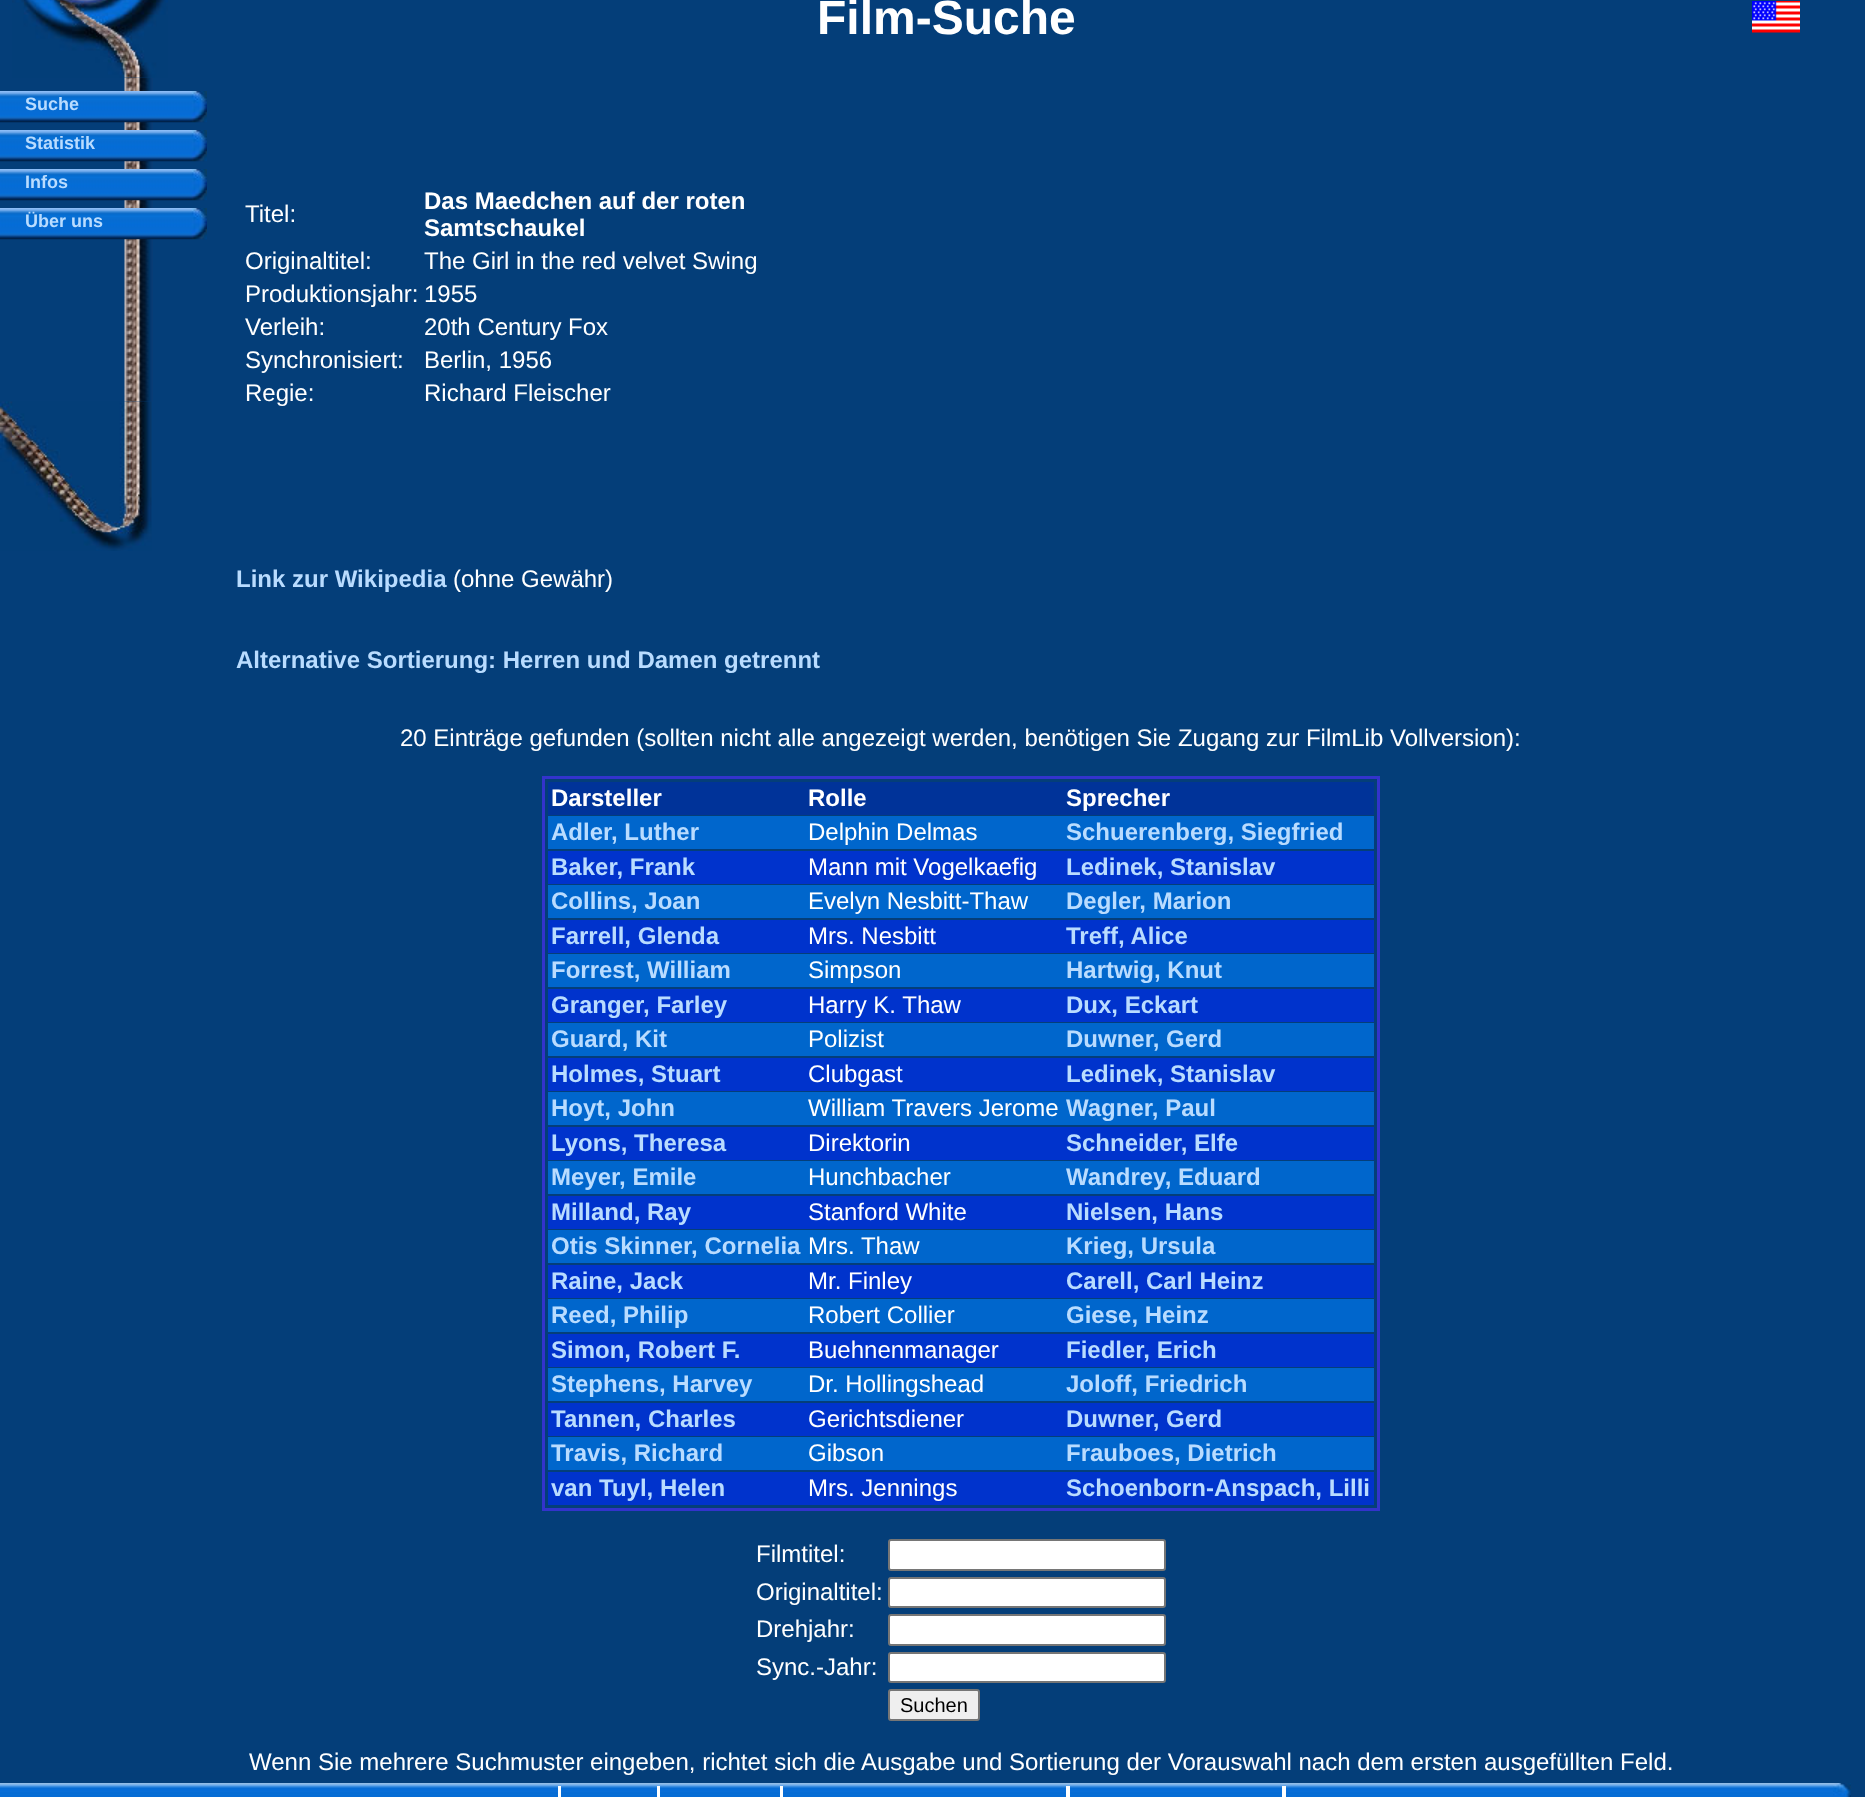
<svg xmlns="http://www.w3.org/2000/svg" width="1865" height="1797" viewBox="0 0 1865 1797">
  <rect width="100%" height="100%" fill="#043e79"/>
  <image x="124" y="77" width="29" height="325" href="img/6.png"/>
  <image x="0" y="91" width="207" height="32" href="img/1.png"/>
  <image x="0" y="130" width="207" height="32" href="img/2.png"/>
  <image x="0" y="169" width="207" height="32" href="img/3.png"/>
  <image x="0" y="208" width="207" height="32" href="img/1.png"/>
  <image x="12" y="0" width="156" height="78" href="img/4.png"/>
  <image x="1752" y="1" width="48" height="32" href="img/5.png"/>
  <image x="0" y="401" width="152" height="150" href="img/7.png"/>
  <path d="M543.5 777.5h835v732H543.5z" fill="none" stroke="#33c" stroke-width="3"/>
  <path d="M548 782h826v33H548z" fill="#039"/>
  <path d="M548 816h826v33H548z" fill="#06c"/>
  <path d="M548 851h826v33H548z" fill="#03c"/>
  <path d="M548 885h826v33H548z" fill="#06c"/>
  <path d="M548 920h826v33H548z" fill="#03c"/>
  <path d="M548 954h826v33H548z" fill="#06c"/>
  <path d="M548 989h826v33H548z" fill="#03c"/>
  <path d="M548 1023h826v33H548z" fill="#06c"/>
  <path d="M548 1058h826v33H548z" fill="#03c"/>
  <path d="M548 1092h826v33H548z" fill="#06c"/>
  <path d="M548 1127h826v33H548z" fill="#03c"/>
  <path d="M548 1161h826v33H548z" fill="#06c"/>
  <path d="M548 1196h826v33H548z" fill="#03c"/>
  <path d="M548 1230h826v33H548z" fill="#06c"/>
  <path d="M548 1265h826v33H548z" fill="#03c"/>
  <path d="M548 1299h826v33H548z" fill="#06c"/>
  <path d="M548 1334h826v33H548z" fill="#03c"/>
  <path d="M548 1368h826v33H548z" fill="#06c"/>
  <path d="M548 1403h826v33H548z" fill="#03c"/>
  <path d="M548 1437h826v33H548z" fill="#06c"/>
  <path d="M548 1472h826v33H548z" fill="#03c"/>
  <rect x="889" y="1540" width="276" height="30" rx="2" fill="#fff" stroke="#767676" stroke-width="2"/>
  <rect x="889" y="1578" width="276" height="29" rx="2" fill="#fff" stroke="#767676" stroke-width="2"/>
  <rect x="889" y="1615" width="276" height="30" rx="2" fill="#fff" stroke="#767676" stroke-width="2"/>
  <rect x="889" y="1653" width="276" height="29" rx="2" fill="#fff" stroke="#767676" stroke-width="2"/>
  <rect x="889" y="1690" width="90" height="30" rx="2" fill="#efefef" stroke="#767676" stroke-width="2"/>
  <image x="0" y="1783" width="153" height="14" href="img/8.png"/>
  <image x="153" y="1783" width="1680" height="14" href="img/9.png"/>
  <path d="M558 1786h3v11H558z" fill="#fff"/>
  <path d="M657 1786h3v11H657z" fill="#fff"/>
  <path d="M780 1786h3v11H780z" fill="#fff"/>
  <path d="M1066 1786h4v11H1066z" fill="#fff"/>
  <path d="M1282 1786h4v11H1282z" fill="#fff"/>
  <image x="1833" y="1783" width="18" height="14" href="img/10.png"/>
  <g font-family="Liberation Sans" font-size="18" font-weight="bold" fill="#b9dcff">
    <text x="25" y="110">Suche</text>
    <text x="25" y="149">Statistik</text>
    <text x="25" y="188">Infos</text>
    <text x="25" y="227">Über uns</text>
  </g>
  <text x="817" y="34" font-family="Liberation Sans" font-size="48" font-weight="bold" fill="#fff">Film-Suche</text>
  <text x="245" y="222" font-family="Liberation Sans" font-size="24" fill="#fff">Titel:</text>
  <g font-family="Liberation Sans" font-size="24" font-weight="bold" fill="#fff">
    <text x="424" y="209">Das Maedchen auf der roten</text>
    <text x="424" y="236">Samtschaukel</text>
  </g>
  <g font-family="Liberation Sans" font-size="24" fill="#fff">
    <text x="245" y="269">Originaltitel:</text>
    <text x="424" y="269">The Girl in the red velvet Swing</text>
    <text x="245" y="302">Produktionsjahr:</text>
    <text x="424" y="302">1955</text>
    <text x="245" y="335">Verleih:</text>
    <text x="424" y="335">20th Century Fox</text>
    <text x="245" y="368">Synchronisiert:</text>
    <text x="424" y="368">Berlin, 1956</text>
    <text x="245" y="401">Regie:</text>
    <text x="424" y="401">Richard Fleischer</text>
  </g>
  <text x="236" y="587" font-family="Liberation Sans" font-size="24" font-weight="bold" fill="#b9dcff">Link zur Wikipedia</text>
  <text x="453" y="587" font-family="Liberation Sans" font-size="24" fill="#fff">(ohne Gewähr)</text>
  <text x="236" y="668" font-family="Liberation Sans" font-size="24" font-weight="bold" fill="#b9dcff">Alternative Sortierung: Herren und Damen getrennt</text>
  <text x="400" y="746" font-family="Liberation Sans" font-size="24" fill="#fff">20 Einträge gefunden (sollten nicht alle angezeigt werden, benötigen Sie Zugang zur FilmLib Vollversion):</text>
  <g font-family="Liberation Sans" font-size="24" font-weight="bold" fill="#fff">
    <text x="551" y="806">Darsteller</text>
    <text x="808" y="806">Rolle</text>
    <text x="1066" y="806">Sprecher</text>
  </g>
  <text x="551" y="840" font-family="Liberation Sans" font-size="24" font-weight="bold" fill="#b9dcff">Adler, Luther</text>
  <text x="808" y="840" font-family="Liberation Sans" font-size="24" fill="#fff">Delphin Delmas</text>
  <g font-family="Liberation Sans" font-size="24" font-weight="bold" fill="#b9dcff">
    <text x="1066" y="840">Schuerenberg, Siegfried</text>
    <text x="551" y="875">Baker, Frank</text>
  </g>
  <text x="808" y="875" font-family="Liberation Sans" font-size="24" fill="#fff">Mann mit Vogelkaefig</text>
  <g font-family="Liberation Sans" font-size="24" font-weight="bold" fill="#b9dcff">
    <text x="1066" y="875">Ledinek, Stanislav</text>
    <text x="551" y="909">Collins, Joan</text>
  </g>
  <text x="808" y="909" font-family="Liberation Sans" font-size="24" fill="#fff">Evelyn Nesbitt-Thaw</text>
  <g font-family="Liberation Sans" font-size="24" font-weight="bold" fill="#b9dcff">
    <text x="1066" y="909">Degler, Marion</text>
    <text x="551" y="944">Farrell, Glenda</text>
  </g>
  <text x="808" y="944" font-family="Liberation Sans" font-size="24" fill="#fff">Mrs. Nesbitt</text>
  <g font-family="Liberation Sans" font-size="24" font-weight="bold" fill="#b9dcff">
    <text x="1066" y="944">Treff, Alice</text>
    <text x="551" y="978">Forrest, William</text>
  </g>
  <text x="808" y="978" font-family="Liberation Sans" font-size="24" fill="#fff">Simpson</text>
  <g font-family="Liberation Sans" font-size="24" font-weight="bold" fill="#b9dcff">
    <text x="1066" y="978">Hartwig, Knut</text>
    <text x="551" y="1013">Granger, Farley</text>
  </g>
  <text x="808" y="1013" font-family="Liberation Sans" font-size="24" fill="#fff">Harry K. Thaw</text>
  <g font-family="Liberation Sans" font-size="24" font-weight="bold" fill="#b9dcff">
    <text x="1066" y="1013">Dux, Eckart</text>
    <text x="551" y="1047">Guard, Kit</text>
  </g>
  <text x="808" y="1047" font-family="Liberation Sans" font-size="24" fill="#fff">Polizist</text>
  <g font-family="Liberation Sans" font-size="24" font-weight="bold" fill="#b9dcff">
    <text x="1066" y="1047">Duwner, Gerd</text>
    <text x="551" y="1082">Holmes, Stuart</text>
  </g>
  <text x="808" y="1082" font-family="Liberation Sans" font-size="24" fill="#fff">Clubgast</text>
  <g font-family="Liberation Sans" font-size="24" font-weight="bold" fill="#b9dcff">
    <text x="1066" y="1082">Ledinek, Stanislav</text>
    <text x="551" y="1116">Hoyt, John</text>
  </g>
  <text x="808" y="1116" font-family="Liberation Sans" font-size="24" fill="#fff">William Travers Jerome</text>
  <g font-family="Liberation Sans" font-size="24" font-weight="bold" fill="#b9dcff">
    <text x="1066" y="1116">Wagner, Paul</text>
    <text x="551" y="1151">Lyons, Theresa</text>
  </g>
  <text x="808" y="1151" font-family="Liberation Sans" font-size="24" fill="#fff">Direktorin</text>
  <g font-family="Liberation Sans" font-size="24" font-weight="bold" fill="#b9dcff">
    <text x="1066" y="1151">Schneider, Elfe</text>
    <text x="551" y="1185">Meyer, Emile</text>
  </g>
  <text x="808" y="1185" font-family="Liberation Sans" font-size="24" fill="#fff">Hunchbacher</text>
  <g font-family="Liberation Sans" font-size="24" font-weight="bold" fill="#b9dcff">
    <text x="1066" y="1185">Wandrey, Eduard</text>
    <text x="551" y="1220">Milland, Ray</text>
  </g>
  <text x="808" y="1220" font-family="Liberation Sans" font-size="24" fill="#fff">Stanford White</text>
  <g font-family="Liberation Sans" font-size="24" font-weight="bold" fill="#b9dcff">
    <text x="1066" y="1220">Nielsen, Hans</text>
    <text x="551" y="1254">Otis Skinner, Cornelia</text>
  </g>
  <text x="808" y="1254" font-family="Liberation Sans" font-size="24" fill="#fff">Mrs. Thaw</text>
  <g font-family="Liberation Sans" font-size="24" font-weight="bold" fill="#b9dcff">
    <text x="1066" y="1254">Krieg, Ursula</text>
    <text x="551" y="1289">Raine, Jack</text>
  </g>
  <text x="808" y="1289" font-family="Liberation Sans" font-size="24" fill="#fff">Mr. Finley</text>
  <g font-family="Liberation Sans" font-size="24" font-weight="bold" fill="#b9dcff">
    <text x="1066" y="1289">Carell, Carl Heinz</text>
    <text x="551" y="1323">Reed, Philip</text>
  </g>
  <text x="808" y="1323" font-family="Liberation Sans" font-size="24" fill="#fff">Robert Collier</text>
  <g font-family="Liberation Sans" font-size="24" font-weight="bold" fill="#b9dcff">
    <text x="1066" y="1323">Giese, Heinz</text>
    <text x="551" y="1358">Simon, Robert F.</text>
  </g>
  <text x="808" y="1358" font-family="Liberation Sans" font-size="24" fill="#fff">Buehnenmanager</text>
  <g font-family="Liberation Sans" font-size="24" font-weight="bold" fill="#b9dcff">
    <text x="1066" y="1358">Fiedler, Erich</text>
    <text x="551" y="1392">Stephens, Harvey</text>
  </g>
  <text x="808" y="1392" font-family="Liberation Sans" font-size="24" fill="#fff">Dr. Hollingshead</text>
  <g font-family="Liberation Sans" font-size="24" font-weight="bold" fill="#b9dcff">
    <text x="1066" y="1392">Joloff, Friedrich</text>
    <text x="551" y="1427">Tannen, Charles</text>
  </g>
  <text x="808" y="1427" font-family="Liberation Sans" font-size="24" fill="#fff">Gerichtsdiener</text>
  <g font-family="Liberation Sans" font-size="24" font-weight="bold" fill="#b9dcff">
    <text x="1066" y="1427">Duwner, Gerd</text>
    <text x="551" y="1461">Travis, Richard</text>
  </g>
  <text x="808" y="1461" font-family="Liberation Sans" font-size="24" fill="#fff">Gibson</text>
  <g font-family="Liberation Sans" font-size="24" font-weight="bold" fill="#b9dcff">
    <text x="1066" y="1461">Frauboes, Dietrich</text>
    <text x="551" y="1496">van Tuyl, Helen</text>
  </g>
  <text x="808" y="1496" font-family="Liberation Sans" font-size="24" fill="#fff">Mrs. Jennings</text>
  <text x="1066" y="1496" font-family="Liberation Sans" font-size="24" font-weight="bold" fill="#b9dcff">Schoenborn-Anspach, Lilli</text>
  <g font-family="Liberation Sans" font-size="24" fill="#fff">
    <text x="756" y="1562">Filmtitel:</text>
    <text x="756" y="1600">Originaltitel:</text>
    <text x="756" y="1637">Drehjahr:</text>
    <text x="756" y="1675">Sync.-Jahr:</text>
  </g>
  <text x="900" y="1712" font-family="Liberation Sans" font-size="20" fill="#000">Suchen</text>
  <text x="249" y="1770" font-family="Liberation Sans" font-size="24" fill="#fff">Wenn Sie mehrere Suchmuster eingeben, richtet sich die Ausgabe und Sortierung der Vorauswahl nach dem ersten ausgefüllten Feld.</text>
</svg>
